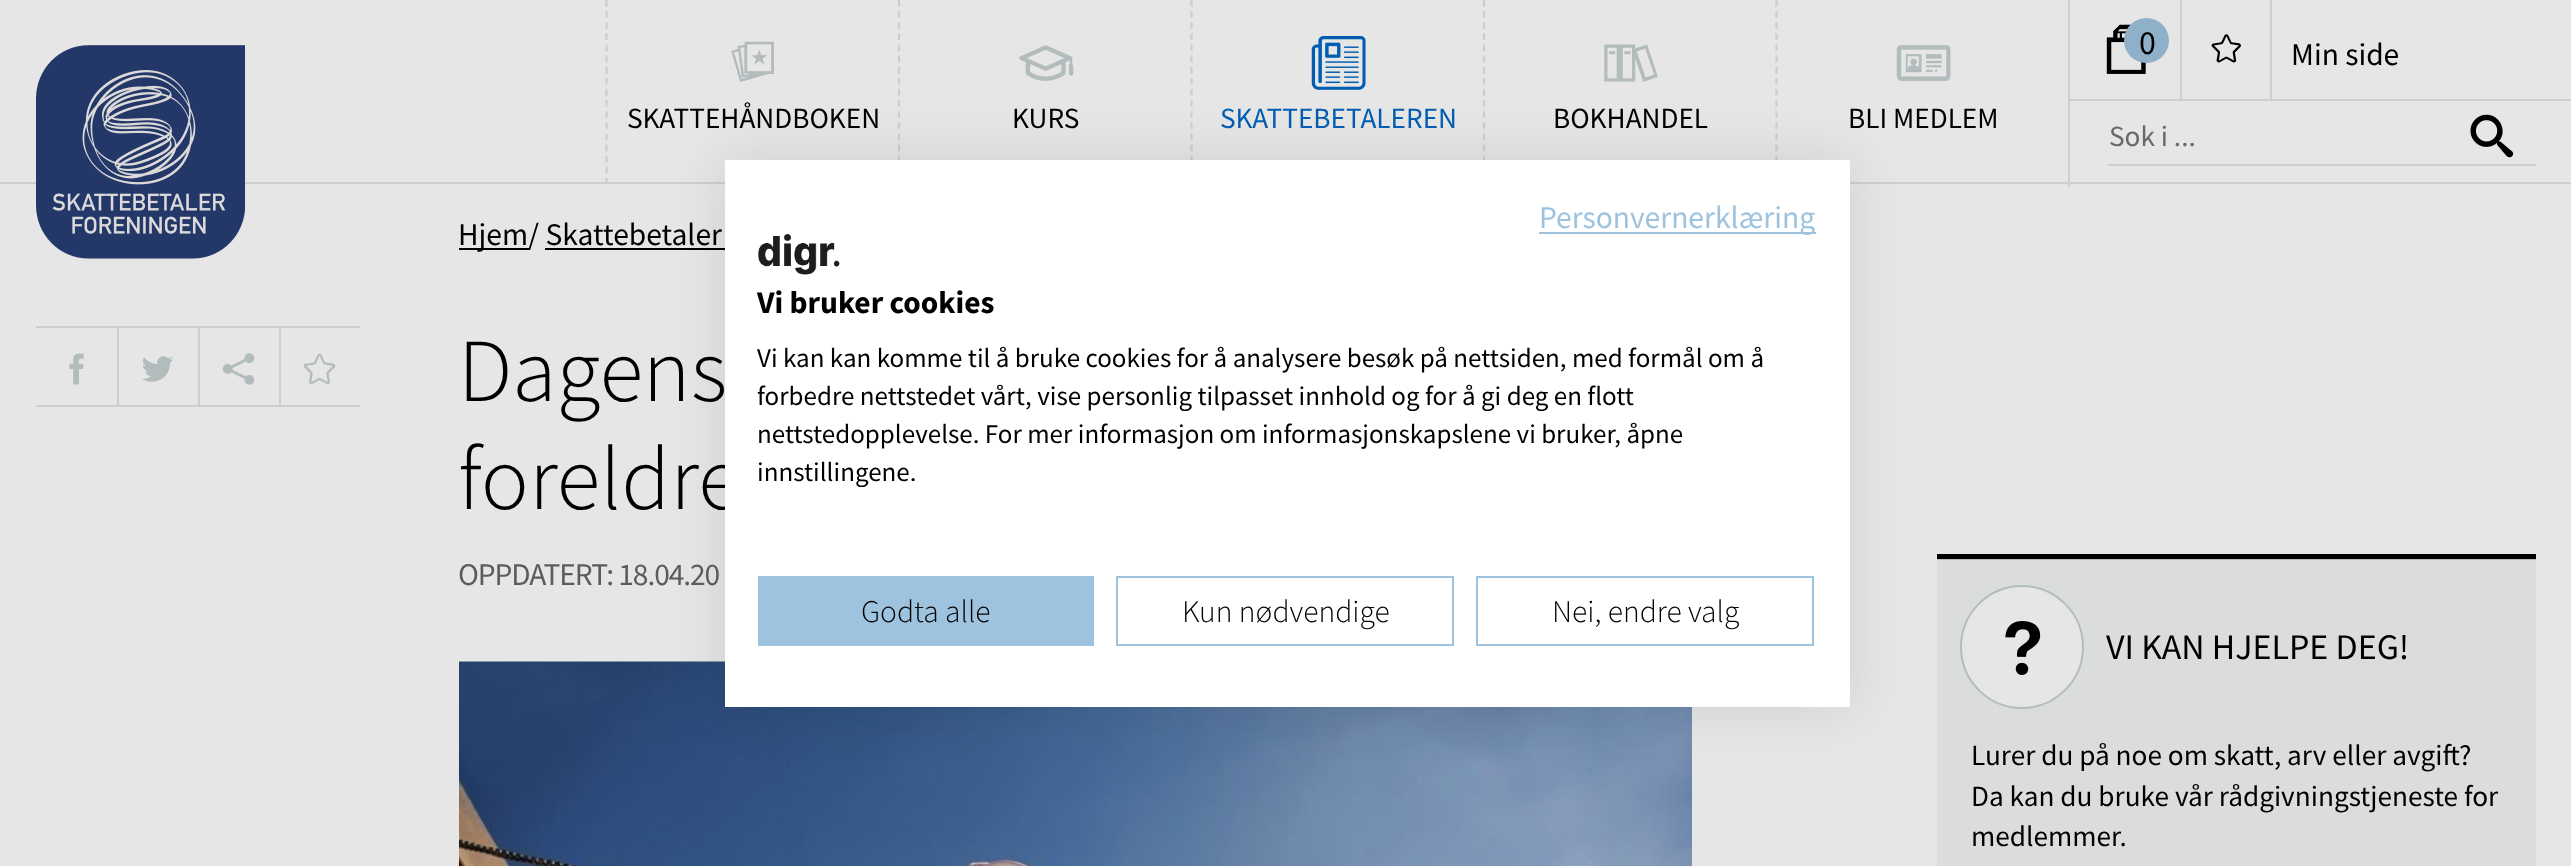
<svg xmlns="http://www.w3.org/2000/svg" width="2571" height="866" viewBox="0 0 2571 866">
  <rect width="100%" height="100%" fill="#e6e6e6"/>
  <path d="M0 182h2571v2H0z" fill="#cacfcf"/>
  <image x="36" y="45" width="209" height="214" href="img/1.png"/>
  <path d="M606.5 0V184.5" fill="none" stroke="#cacfcf" stroke-width="2.2" stroke-dasharray="6.75 4.37"/>
  <image x="731" y="41" width="43" height="41" href="img/2.png"/>
  <path d="M899 0V184.5" fill="none" stroke="#cacfcf" stroke-width="2.2" stroke-dasharray="6.75 4.37"/>
  <image x="1019" y="45" width="55" height="36" href="img/3.png"/>
  <path d="M1191.5 0V184.5" fill="none" stroke="#cacfcf" stroke-width="2.2" stroke-dasharray="6.75 4.37"/>
  <image x="1311" y="36" width="55" height="54" href="img/4.png"/>
  <path d="M1484 0V184.5" fill="none" stroke="#cacfcf" stroke-width="2.2" stroke-dasharray="6.75 4.37"/>
  <image x="1604" y="44" width="54" height="38" href="img/5.png"/>
  <path d="M1776.5 0V184.5" fill="none" stroke="#cacfcf" stroke-width="2.2" stroke-dasharray="6.75 4.37"/>
  <image x="1896" y="45" width="55" height="36" href="img/6.png"/>
  <path d="M2068 0h2v187H2068z" fill="#cacfcf"/>
  <path d="M2070 99h501v2H2070z" fill="#cacfcf"/>
  <path d="M2180 0h2v99H2180z" fill="#cacfcf"/>
  <image x="2106" y="24" width="40" height="50" href="img/7.png"/>
  <circle cx="2146.5" cy="40.5" r="22.5" fill="#8eb0c8"/>
  <path d="M2270 0h2v99H2270z" fill="#cacfcf"/>
  <image x="2211" y="34" width="30" height="29" href="img/8.png"/>
  <path d="M2108 164h428v2H2108z" fill="#cacfcf"/>
  <image x="2470" y="114" width="44" height="44" href="img/9.png"/>
  <path d="M459 248h70v2H459z" fill="#000"/>
  <path d="M545 248h180v2H545z" fill="#000"/>
  <path d="M36 326h324v2H36z" fill="#cacfcf"/>
  <path d="M36 405h324v2H36z" fill="#cacfcf"/>
  <image x="69" y="353" width="15" height="32" href="img/10.png"/>
  <path d="M117 326h2v81H117z" fill="#cacfcf"/>
  <image x="142" y="356" width="31" height="26" href="img/11.png"/>
  <path d="M198 326h2v81H198z" fill="#cacfcf"/>
  <image x="222" y="353" width="33" height="32" href="img/12.png"/>
  <path d="M279 326h2v81H279z" fill="#cacfcf"/>
  <image x="303" y="353" width="33" height="32" href="img/13.png"/>
  <image x="459" y="661" width="1233" height="205" href="img/14.png"/>
  <path d="M1937 560h599v306H1937z" fill="#dbdddd"/>
  <path d="M1937 559h599v1H1937z" fill="#b3bcbc"/>
  <path d="M1937 554h599v5H1937z" fill="#000"/>
  <circle cx="2022" cy="647" r="61" fill="#e6e6e6" stroke="#b3bcbc" stroke-width="2"/>
  <image x="2005" y="621" width="36" height="54" href="img/15.png"/>
  <path d="M725 160h1125v547H725z" fill="#0000001a" filter="blur(27px)"/>
  <g font-family="Source Sans Pro" font-size="29.25" fill="#000">
    <text x="627" y="128">SKATTEHÅNDBOKEN</text>
    <text x="1012" y="128">KURS</text>
  </g>
  <text x="1220" y="128" font-family="Source Sans Pro" font-size="29.25" fill="#005db1">SKATTEBETALEREN</text>
  <g font-family="Source Sans Pro" font-size="29.25" fill="#000">
    <text x="1553" y="128">BOKHANDEL</text>
    <text x="1848" y="128">BLI MEDLEM</text>
  </g>
  <text x="2139" y="54" font-family="Source Sans Pro" font-size="34" fill="#000">0</text>
  <text x="2291" y="65" font-family="Source Sans Pro" font-size="31.5" fill="#000">Min side</text>
  <text x="2109" y="146" font-family="Source Sans Pro" font-size="29.25" fill="#696969">Sok i ...</text>
  <text x="458" y="245" font-family="Source Sans Pro" font-size="31.5" fill="#000">Hjem/ Skattebetaler</text>
  <g font-family="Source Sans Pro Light" font-size="90" font-weight="300" fill="#000">
    <text x="458" y="401">Dagens</text>
    <text x="458" y="509">foreldre</text>
  </g>
  <text x="458" y="585" font-family="Source Sans Pro" font-size="31.5" letter-spacing="-1.1" fill="#5c5c5c">OPPDATERT: 18.04.20</text>
  <text x="2106" y="659" font-family="Source Sans Pro" font-size="36" fill="#000">VI KAN HJELPE DEG!</text>
  <g font-family="Source Sans Pro" font-size="29.25" fill="#000">
    <text x="1971" y="765">Lurer du på noe om skatt, arv eller avgift?</text>
    <text x="1971" y="806">Da kan du bruke vår rådgivningstjeneste for</text>
    <text x="1971" y="846">medlemmer.</text>
  </g>
  <path d="M725 160h1125v547H725z" fill="#fff"/>
  <path d="M1539 232h277v2H1539z" fill="#9ec3de"/>
  <text x="1539" y="228" font-family="Source Sans Pro" font-size="31.5" fill="#9ec3de">Personvernerklæring</text>
  <image x="758" y="234" width="82" height="41" href="img/16.png"/>
  <text x="757" y="313" font-family="Source Sans Pro" font-size="31.5" font-weight="bold" fill="#000">Vi bruker cookies</text>
  <g font-family="Source Sans Pro" font-size="27" fill="#000">
    <text x="757" y="367">Vi kan kan komme til å bruke cookies for å analysere besøk på nettsiden, med formål om å</text>
    <text x="757" y="405">forbedre nettstedet vårt, vise personlig tilpasset innhold og for å gi deg en flott</text>
    <text x="757" y="443">nettstedopplevelse. For mer informasjon om informasjonskapslene vi bruker, åpne</text>
    <text x="757" y="481">innstillingene.</text>
  </g>
  <path d="M758 576h336v70H758z" fill="#9ec3de"/>
  <text x="861" y="622" font-family="Source Sans Pro Light" font-size="31.5" font-weight="300" fill="#000">Godta alle</text>
  <path d="M1117 577h336v68H1117z" fill="none" stroke="#9ec3de" stroke-width="2"/>
  <text x="1182" y="622" font-family="Source Sans Pro Light" font-size="31.5" font-weight="300" fill="#000">Kun nødvendige</text>
  <path d="M1477 577h336v68H1477z" fill="none" stroke="#9ec3de" stroke-width="2"/>
  <text x="1552" y="622" font-family="Source Sans Pro Light" font-size="31.5" font-weight="300" fill="#000">Nei, endre valg</text>
</svg>
